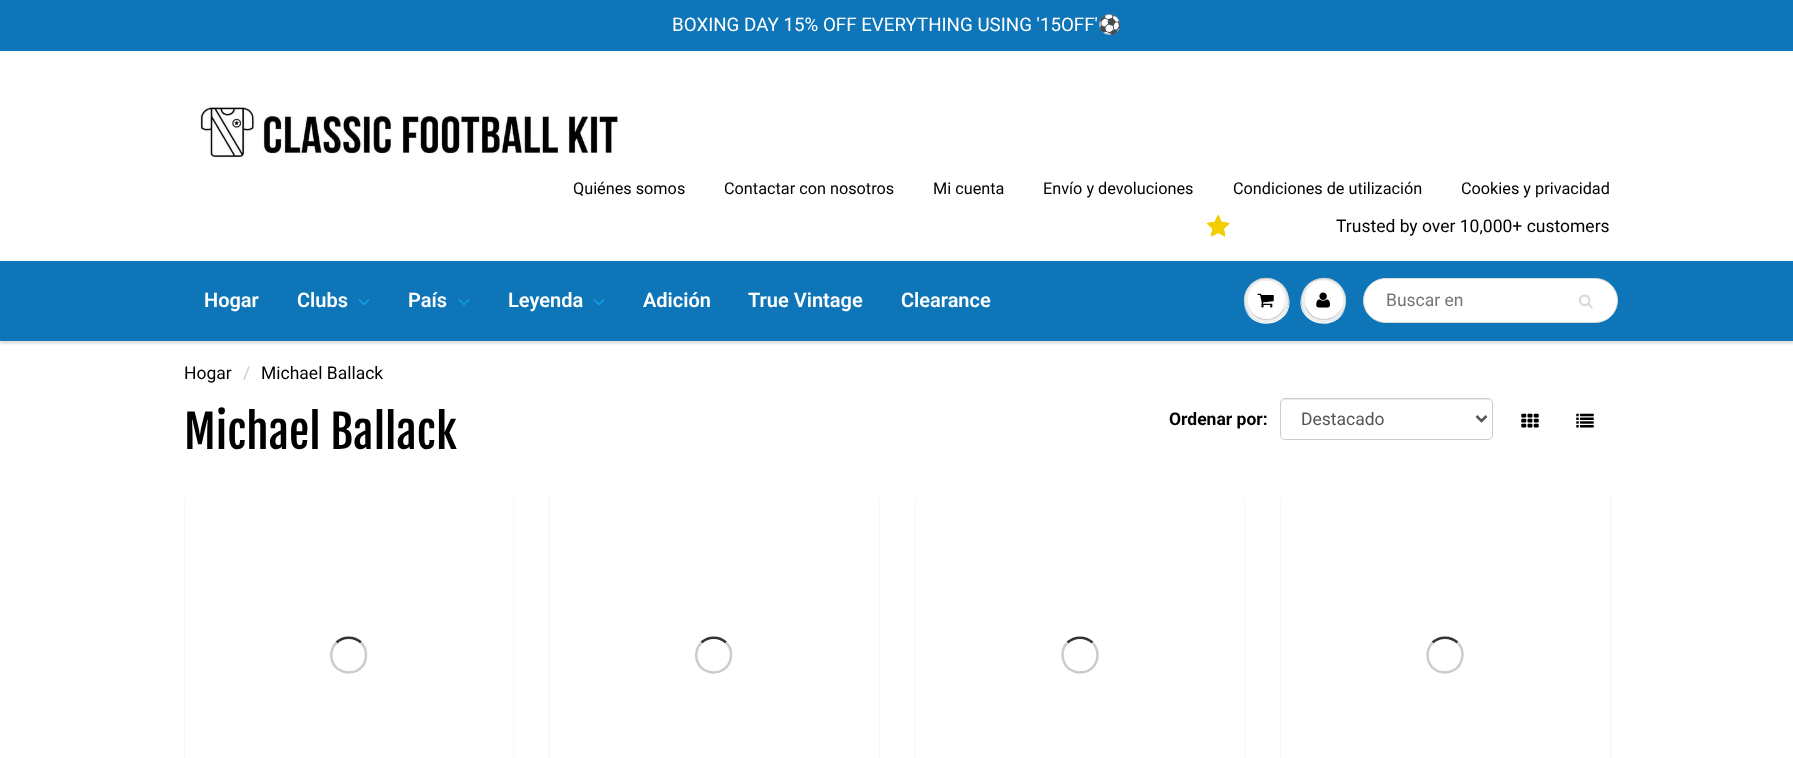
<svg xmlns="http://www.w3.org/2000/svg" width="1793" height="758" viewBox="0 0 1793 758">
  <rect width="100%" height="100%" fill="#fff"/>
  <path d="M0 0h1793v51H0z" fill="#0e76b8"/>
  <image x="200" y="105" width="419" height="54" href="img/1.png"/>
  <image x="1206" y="215" width="24" height="22" href="img/2.png"/>
  <path d="M0 263h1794v81H0z" fill="#0b191c1f" filter="blur(1px)"/>
  <path d="M0 261h1793v80H0z" fill="#0e76b8"/>
  <image x="358" y="299" width="12" height="7" href="img/3.png"/>
  <image x="458" y="299" width="12" height="7" href="img/3.png"/>
  <image x="593" y="299" width="12" height="7" href="img/3.png"/>
  <path d="M1244 304C1248 335 1295 327 1289 297C1292 325 1250 333 1244 304Z" fill="#fff"/>
  <circle cx="1266.5" cy="300.5" r="22.5" fill="#edefef"/>
  <path d="M1266 279C1284 279 1291 296 1287 309C1297 285 1263 265 1248 288C1244 293 1243 300 1245 306C1243 293 1250 279 1266 279Z" fill="#c9cbcb"/>
  <path d="M1249 307C1255 327.5 1286 322.5 1285 301C1284 321 1256 325.5 1249 307Z" fill="#c9cbcb"/>
  <rect x="1248" y="281" width="37" height="38" rx="18.5" fill="#fff"/>
  <path d="M1266 282C1281 282 1287 295.5 1284 306C1285.5 301.5 1285.5 296.5 1283.5 292.5C1275.5 273.5 1247.5 279 1248 300.5C1248 291.5 1254 282 1266 282Z" fill="#fff"/>
  <image x="1257" y="293" width="17" height="15" href="img/4.png"/>
  <path d="M1301 297C1295 327 1342 335 1346 304C1340 333 1298 325 1301 297Z" fill="#fff"/>
  <circle cx="1323.5" cy="300.5" r="22.5" fill="#edefef"/>
  <path d="M1324 279C1340 279 1347 293 1345 306C1347 300 1346 293 1342 288C1327 265 1293 285 1303 309C1299 296 1306 279 1324 279Z" fill="#c9cbcb"/>
  <path d="M1305 301C1304 321.5 1333.5 327.5 1341.5 308.5C1343.5 304.5 1343.5 299.5 1342 295C1347 313 1324.5 327 1310.5 313.5C1307.5 310 1305 305.5 1305 301Z" fill="#c9cbcb"/>
  <circle cx="1324" cy="300" r="19" fill="#fff"/>
  <path d="M1324 282C1340 282 1345 299 1340 311C1353 290 1322 268 1308 289C1305 294 1304 299 1306 304C1304 294 1310 282 1324 282Z" fill="#fff"/>
  <image x="1316" y="292" width="14" height="16" href="img/5.png"/>
  <rect x="1363.5" y="278.5" width="254" height="44" rx="22" fill="#fff" stroke="#d7dbdb"/>
  <image x="1578" y="294" width="15" height="15" href="img/6.png"/>
  <path d="M1285 400H1488C1490 400 1491 402 1491 404V403C1491 401 1489 399 1487 399H1285C1283 399 1281 401 1281 403V404C1281 402 1283 400 1285 400Z" fill="#ececec"/>
  <rect x="1280.5" y="398.5" width="212" height="41" rx="4.5" fill="none" stroke="#ccc"/>
  <path d="M1476.5 416L1481.5 421L1486.5 416" fill="none" stroke="#555" stroke-width="2.5"/>
  <image x="1521" y="413" width="18" height="15" href="img/7.png"/>
  <image x="1576" y="413" width="18" height="15" href="img/8.png"/>
  <rect x="185" y="494" width="328" height="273" rx="6" fill="#0b191c1a" filter="blur(1px)"/>
  <rect x="185" y="491" width="328" height="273" rx="6" fill="#fff"/>
  <path d="M336.5 642.5C343 636 354.5 636 361 642.5" fill="none" stroke="#333" stroke-width="2.5"/>
  <path d="M361 642.5C364.5 646 366 650.5 366 655C366.5 676 335.5 679 331.5 658.5C330.5 652.5 332.5 646.5 336.5 642.5" fill="none" stroke="#ccc" stroke-width="2.5"/>
  <rect x="550" y="494" width="329" height="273" rx="6" fill="#0b191c1a" filter="blur(1px)"/>
  <rect x="550" y="491" width="329" height="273" rx="6" fill="#fff"/>
  <path d="M701.5 642.5C708 636 719.5 636 726 642.5" fill="none" stroke="#333" stroke-width="2.5"/>
  <path d="M726 642.5C729.5 646 731.5 650.5 731 655C731 676 700.5 679 696.5 658.5C695.5 652.5 697.5 646.5 701.5 642.5" fill="none" stroke="#ccc" stroke-width="2.5"/>
  <rect x="916" y="494" width="328" height="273" rx="6" fill="#0b191c1a" filter="blur(1px)"/>
  <rect x="916" y="491" width="328" height="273" rx="6" fill="#fff"/>
  <path d="M1067.5 642.5C1074.5 636 1085.5 636 1092.5 642.5" fill="none" stroke="#333" stroke-width="2.5"/>
  <path d="M1092.5 642.5C1095.5 646 1097.5 650.5 1097.5 655C1097.5 676 1067 679 1063 658.5C1061.5 652.5 1063.5 646.5 1067.5 642.5" fill="none" stroke="#ccc" stroke-width="2.5"/>
  <rect x="1281" y="494" width="329" height="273" rx="6" fill="#0b191c1a" filter="blur(1px)"/>
  <rect x="1281" y="491" width="329" height="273" rx="6" fill="#fff"/>
  <path d="M1432.5 642.5C1439.5 636 1450.5 636 1457.5 642.5" fill="none" stroke="#333" stroke-width="2.5"/>
  <path d="M1457.5 642.5C1461.5 646.5 1463.5 652.5 1462 658.5C1458 679 1427.5 676 1427.5 655C1427.5 650.5 1429.5 646 1432.5 642.5" fill="none" stroke="#ccc" stroke-width="2.5"/>
  <text x="672" y="31" font-family="Roboto" font-size="18.75" fill="#fff">BOXING DAY 15% OFF EVERYTHING USING '15OFF'</text>
  <text x="1098" y="31" font-family="Noto Color Emoji" font-size="18.75" fill="#fff">⚽</text>
  <g font-family="Roboto" font-size="16.25" fill="#000">
    <text x="573" y="194">Quiénes somos</text>
    <text x="724" y="194">Contactar con nosotros</text>
    <text x="933" y="194">Mi cuenta</text>
    <text x="1043" y="194">Envío y devoluciones</text>
    <text x="1233" y="194">Condiciones de utilización</text>
    <text x="1461" y="194">Cookies y privacidad</text>
  </g>
  <text x="1336" y="232" font-family="Roboto" font-size="17.5" fill="#000">Trusted by over 10,000+ customers</text>
  <g font-family="Roboto" font-size="20" font-weight="600" fill="#fff">
    <text x="204" y="307">Hogar</text>
    <text x="297" y="307">Clubs</text>
    <text x="408" y="307">País</text>
    <text x="508" y="307">Leyenda</text>
    <text x="643" y="307">Adición</text>
    <text x="748" y="307">True Vintage</text>
    <text x="901" y="307">Clearance</text>
  </g>
  <text x="1386" y="306" font-family="Roboto" font-size="17.5" fill="#757575">Buscar en</text>
  <text x="184" y="379" font-family="Roboto" font-size="17.5" fill="#000">Hogar</text>
  <text x="243" y="379" font-family="Roboto" font-size="17.5" fill="#ccc">/</text>
  <text x="261" y="379" font-family="Roboto" font-size="17.5" fill="#000">Michael Ballack</text>
  <text x="184" y="449" font-family="Fjalla One" font-size="45" fill="#000">Michael Ballack</text>
  <text x="1169" y="425" font-family="Roboto" font-size="17.5" font-weight="bold" fill="#000">Ordenar por:</text>
  <text x="1301" y="425" font-family="Roboto" font-size="17.5" fill="#555">Destacado</text>
</svg>
